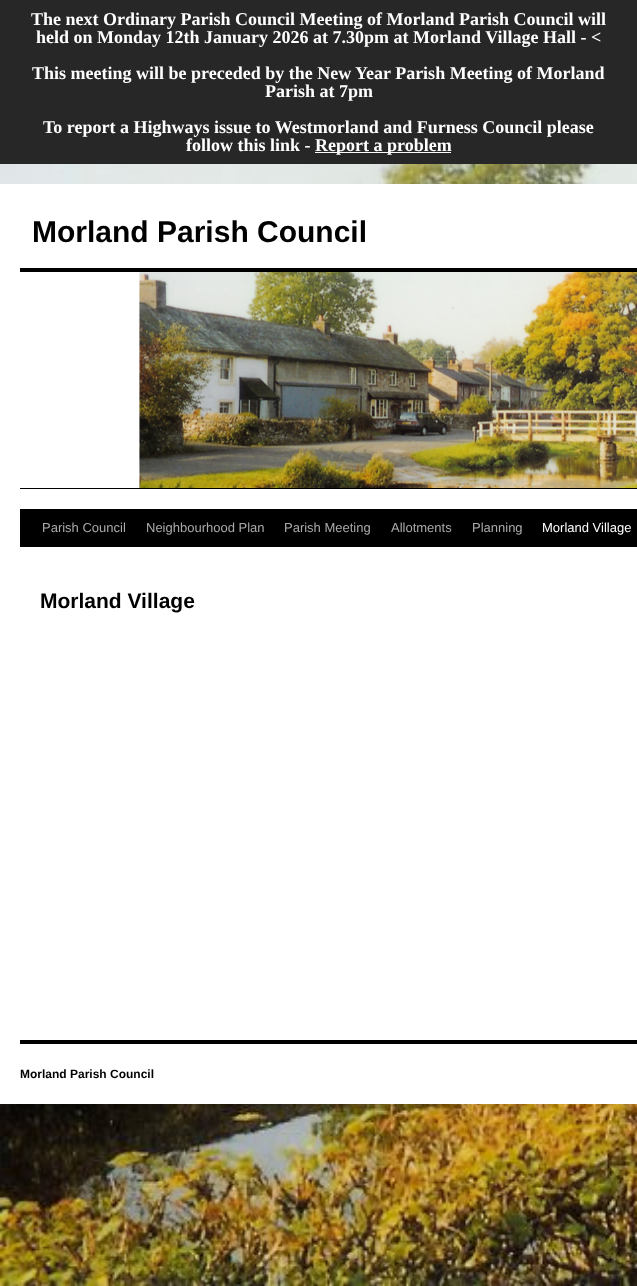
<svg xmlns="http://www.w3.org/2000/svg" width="637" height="1286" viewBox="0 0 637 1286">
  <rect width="100%" height="100%" fill="#fff"/>
  <image x="0" y="164" width="637" height="1122" href="img/1.png"/>
  <path d="M0 0h637v164H0z" fill="#262726"/>
  <path d="M315 152h136v1H315z" fill="#fcfcfc"/>
  <path d="M0 184h637v920H0z" fill="#fff"/>
  <path d="M20 268h617v4H20z" fill="#000"/>
  <path d="M20 488h617v1H20z" fill="#000"/>
  <image x="139" y="272" width="498" height="216" href="img/2.png"/>
  <path d="M20 509h617v38H20z" fill="#000"/>
  <path d="M20 1040h617v4H20z" fill="#000"/>
  <g font-family="Liberation Serif" font-size="18" font-weight="bold" fill="#fff">
    <text x="31" y="25">The next Ordinary Parish Council Meeting of Morland Parish Council will</text>
    <text x="36" y="43">held on Monday 12th January 2026 at 7.30pm at Morland Village Hall - &lt;</text>
    <text x="32" y="79">This meeting will be preceded by the New Year Parish Meeting of Morland</text>
    <text x="265" y="97">Parish at 7pm</text>
    <text x="43" y="133">To report a Highways issue to Westmorland and Furness Council please</text>
    <text x="186" y="151">follow this link -</text>
    <text x="315" y="151">Report a problem</text>
  </g>
  <text x="32" y="242" font-family="Liberation Sans" font-size="30" font-weight="bold" fill="#000">Morland Parish Council</text>
  <g font-family="Liberation Sans" font-size="13" fill="#aaa">
    <text x="42" y="532">Parish Council</text>
    <text x="146" y="532">Neighbourhood Plan</text>
    <text x="284" y="532">Parish Meeting</text>
    <text x="391" y="532">Allotments</text>
    <text x="472" y="532">Planning</text>
  </g>
  <text x="542" y="532" font-family="Liberation Sans" font-size="13" fill="#fff">Morland Village</text>
  <text x="40" y="608" font-family="Liberation Sans" font-size="21" font-weight="bold" fill="#000">Morland Village</text>
  <text x="20" y="1078" font-family="Liberation Sans" font-size="12" font-weight="bold" fill="#000">Morland Parish Council</text>
</svg>
